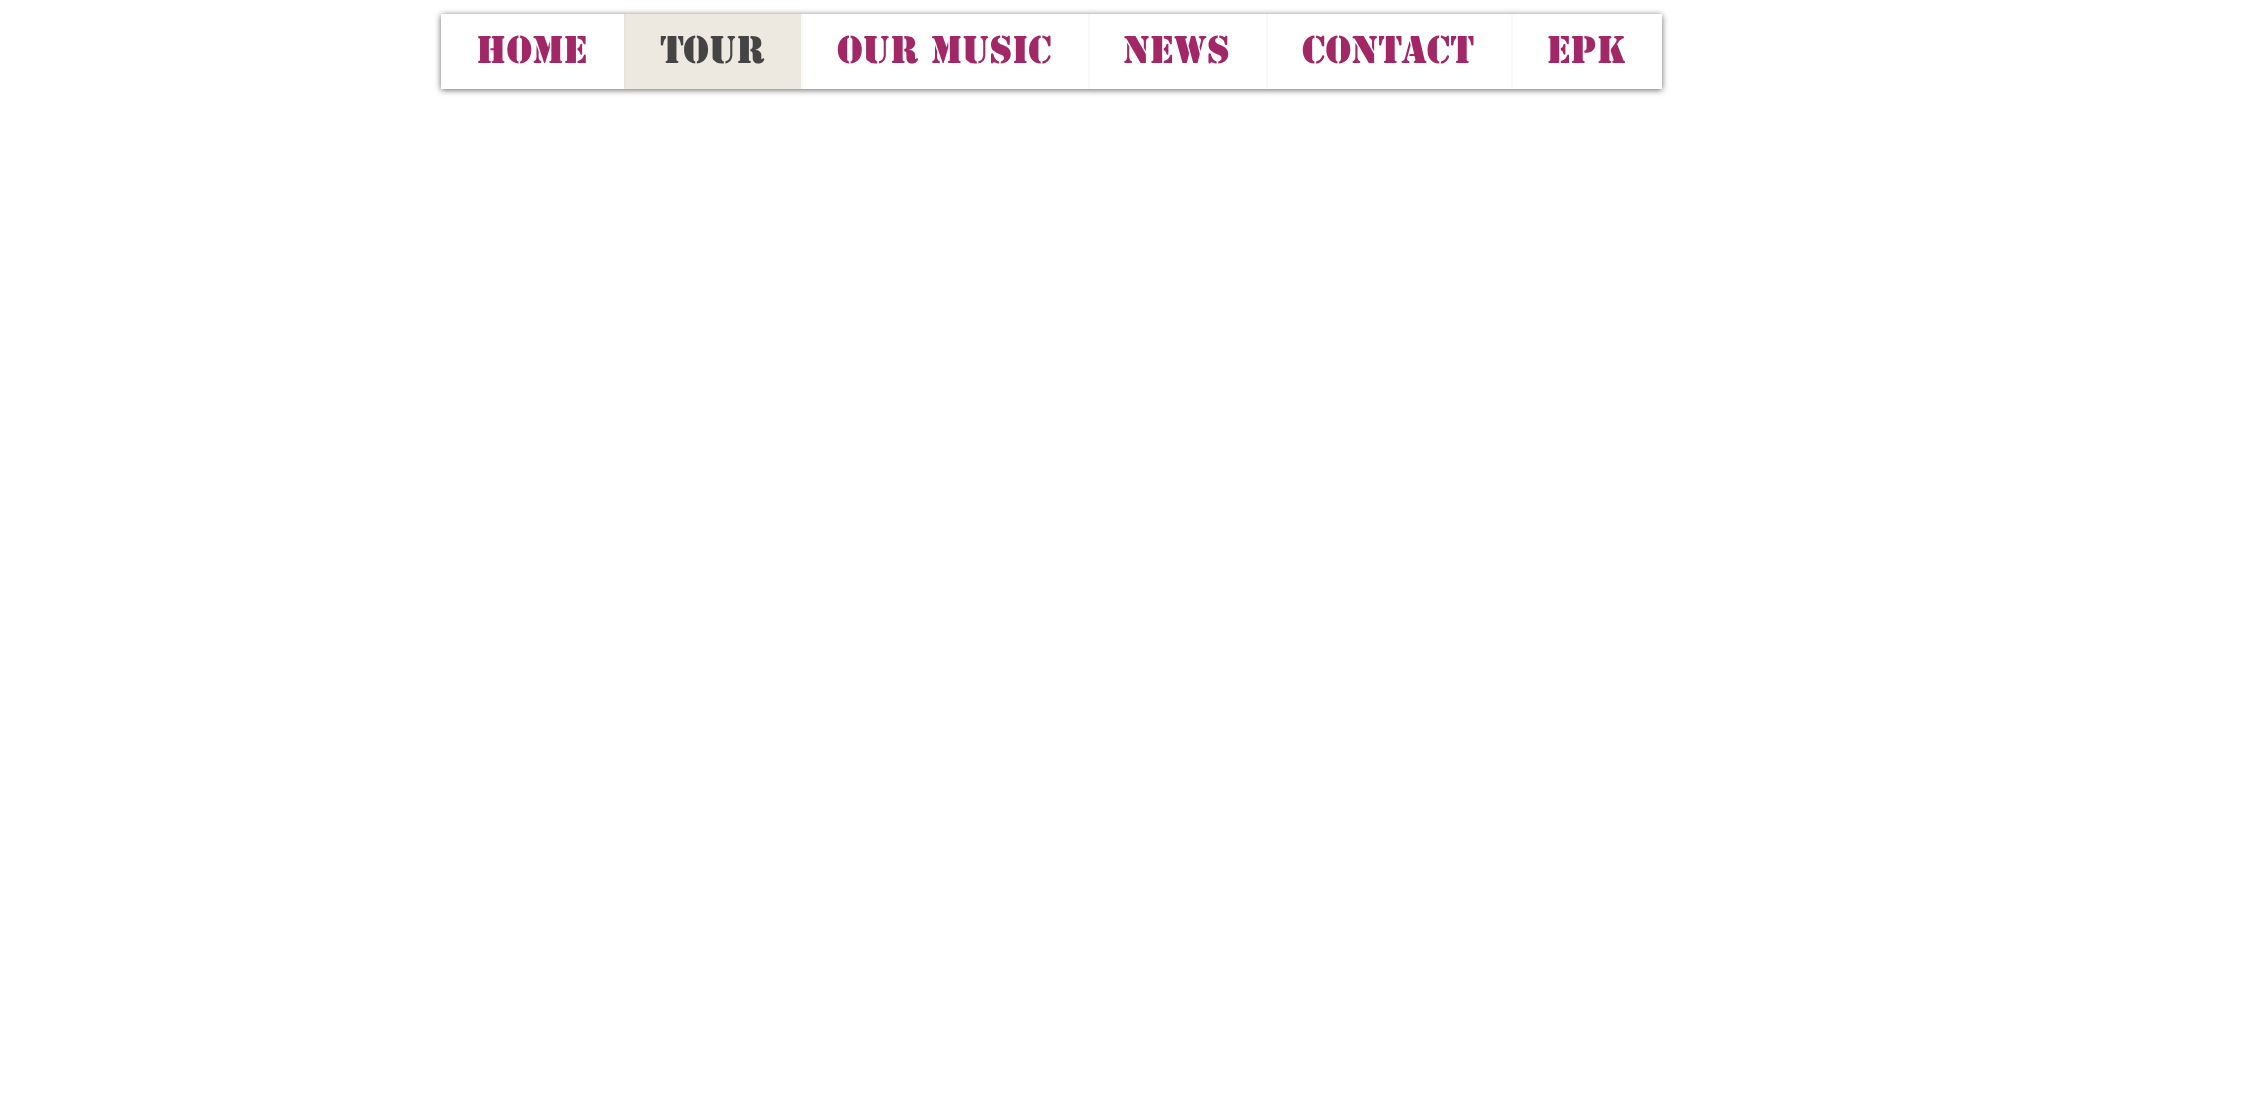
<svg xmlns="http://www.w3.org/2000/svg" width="2260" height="1109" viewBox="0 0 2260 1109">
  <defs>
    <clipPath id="clip1"><path d="M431 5H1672V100H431ZM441 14H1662V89H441Z" clip-rule="evenodd"/></clipPath>
  </defs>
  <rect width="100%" height="100%" fill="#fff"/>
  <g clip-path="url(#clip1)">
    <path d="M441 15h1221v75H441z" fill="#00000099" filter="blur(3px)"/>
  </g>
  <path d="M626 14h175v75H626z" fill="#ede9e1"/>
  <path d="M624 14h2v75H624z" fill="#e8e4dc"/>
  <path d="M801 14h2v75H801z" fill="#41414108"/>
  <path d="M1088 14h2v75H1088z" fill="#41414108"/>
  <path d="M1266 14h2v75H1266z" fill="#41414108"/>
  <path d="M1511 14h2v75H1511z" fill="#41414108"/>
  <text x="476" y="63" font-family="'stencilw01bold'" font-size="36" font-weight="bold" fill="#a12767">HOME</text>
  <text x="660" y="63" font-family="'stencilw01bold'" font-size="36" font-weight="bold" fill="#444">TOUR</text>
  <g font-family="'stencilw01bold'" font-size="36" font-weight="bold" fill="#a12767">
    <text x="837" y="63">OUR MUSIC</text>
    <text x="1123" y="63">NEWS</text>
    <text x="1302" y="63">CONTACT</text>
    <text x="1547" y="63">EPK</text>
  </g>
</svg>
